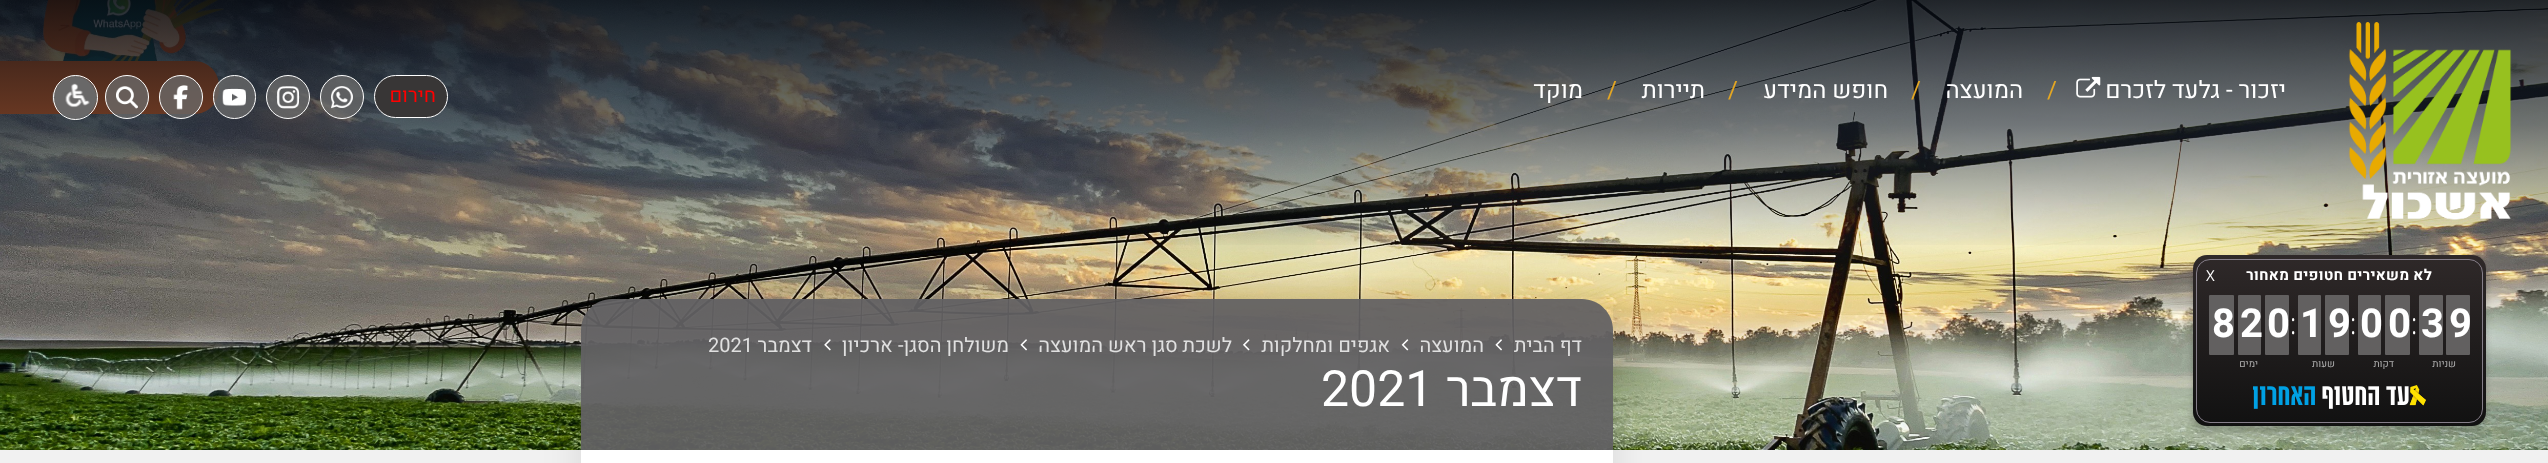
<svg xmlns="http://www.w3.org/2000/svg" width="2548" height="463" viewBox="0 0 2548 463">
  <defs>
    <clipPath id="clip1"><path d="M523 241H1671V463H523ZM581 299H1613V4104H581Z" clip-rule="evenodd"/></clipPath>
    <linearGradient id="g1" gradientUnits="userSpaceOnUse" x1="1274" y1="250" x2="1274" y2="0"><stop offset="0" stop-color="#141c2b" stop-opacity="0"/><stop offset="0.5" stop-color="#141c2b" stop-opacity="0.58"/><stop offset="1" stop-color="#050910" stop-opacity="0.87"/></linearGradient>
    <linearGradient id="g2" gradientUnits="userSpaceOnUse" x1="2339" y1="255" x2="2339" y2="426"><stop offset="0" stop-color="#2f2929"/><stop offset="1" stop-color="#111"/></linearGradient>
  </defs>
  <rect width="100%" height="100%" fill="#f1f1f1"/>
  <image x="0" y="0" width="2548" height="450" href="img/1.png"/>
  <image x="43" y="0" width="181" height="61" href="img/2.png"/>
  <path d="M0 61H194C208 61 219 72 219 86V89C219 103 208 114 194 114H0Z" fill="#e76318"/>
  <g clip-path="url(#clip1)">
    <path d="M581 299h1032v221H581z" fill="#0000001a" filter="blur(19px)"/>
  </g>
  <path d="M0 0h2548v245H0z" fill="url(#g1)"/>
  <image x="2348" y="22" width="164" height="198" href="img/3.png"/>
  <image x="2076" y="76" width="25" height="22" href="img/4.png"/>
  <circle cx="342" cy="97" r="21.5" fill="#6b6b6bc4" stroke="#fff"/>
  <circle cx="288" cy="97" r="21.5" fill="#6b6b6bc4" stroke="#fff"/>
  <rect x="213.5" y="75.5" width="42" height="43" rx="21" fill="#6b6b6bc4" stroke="#fff"/>
  <circle cx="181" cy="97" r="21.5" fill="#6b6b6bc4" stroke="#fff"/>
  <circle cx="127" cy="97" r="21.5" fill="#6b6b6bc4" stroke="#fff"/>
  <rect x="374.5" y="75.5" width="73" height="42" rx="21" fill="#383636" stroke="#fff"/>
  <image x="331" y="86" width="22" height="23" href="img/5.png"/>
  <image x="276" y="86" width="24" height="23" href="img/6.png"/>
  <image x="222" y="88" width="24" height="18" href="img/7.png"/>
  <image x="173" y="85" width="15" height="25" href="img/8.png"/>
  <image x="116" y="86" width="22" height="23" href="img/9.png"/>
  <image x="52" y="75" width="46" height="45" href="img/10.png"/>
  <circle cx="75.5" cy="97.5" r="22" fill="none" stroke="#fff"/>
  <rect x="2193" y="261" width="293" height="172" rx="14" fill="#00000033" filter="blur(3.5px)"/>
  <rect x="2193" y="255" width="293" height="171" rx="14" fill="url(#g2)"/>
  <rect x="2196.5" y="259.5" width="286" height="163" rx="13.5" fill="none" stroke="#867f8a"/>
  <rect x="2446" y="295" width="24" height="60" rx="1" fill="#626060"/>
  <rect x="2419" y="295" width="24" height="60" rx="1" fill="#626060"/>
  <rect x="2385" y="295" width="25" height="60" rx="1" fill="#626060"/>
  <rect x="2358" y="295" width="23" height="60" rx="1" fill="#626060"/>
  <rect x="2325" y="295" width="24" height="60" rx="1" fill="#626060"/>
  <rect x="2298" y="295" width="23" height="60" rx="1" fill="#626060"/>
  <rect x="2265" y="295" width="24" height="60" rx="1" fill="#626060"/>
  <rect x="2238" y="295" width="23" height="60" rx="1" fill="#626060"/>
  <rect x="2209" y="295" width="25" height="60" rx="1" fill="#626060"/>
  <image x="2253" y="385" width="173" height="24" href="img/11.png"/>
  <path d="M612 299H1582C1599 299 1613 313 1613 330V450H581V330C581 313 595 299 612 299Z" fill="#626163f0"/>
  <image x="1495" y="339" width="7" height="12" href="img/12.png"/>
  <image x="1401" y="339" width="8" height="12" href="img/13.png"/>
  <image x="1243" y="339" width="7" height="12" href="img/14.png"/>
  <image x="1020" y="339" width="7" height="12" href="img/15.png"/>
  <image x="824" y="339" width="7" height="12" href="img/16.png"/>
  <path d="M581 450h1032v13H581z" fill="#fff"/>
  <text x="2286" y="98" font-family="Heebo" font-size="24" direction="rtl" fill="#fff">יזכור - גלעד לזכרם</text>
  <text x="2047" y="98" font-family="Heebo" font-size="24" fill="#e4a723">/</text>
  <text x="2023" y="98" font-family="Heebo" font-size="24" direction="rtl" fill="#fff">המועצה</text>
  <text x="1911" y="98" font-family="Heebo" font-size="24" fill="#e4a723">/</text>
  <text x="1888" y="98" font-family="Heebo" font-size="24" direction="rtl" fill="#fff">חופש המידע</text>
  <text x="1728" y="98" font-family="Heebo" font-size="24" fill="#e4a723">/</text>
  <text x="1705" y="98" font-family="Heebo" font-size="24" direction="rtl" fill="#fff">תיירות</text>
  <text x="1607" y="98" font-family="Heebo" font-size="24" fill="#e4a723">/</text>
  <text x="1583" y="98" font-family="Heebo" font-size="24" direction="rtl" fill="#fff">מוקד</text>
  <text x="436" y="102" font-family="Heebo" font-size="20" direction="rtl" fill="#f00">חירום</text>
  <text x="2432" y="280" font-family="Heebo" font-size="15" font-weight="bold" letter-spacing="0.25" direction="rtl" fill="#fff">לא משאירים חטופים מאחור</text>
  <g font-family="Heebo" font-size="40" font-weight="bold" fill="#fff">
    <text x="2449" y="337">9</text>
    <text x="2421" y="337">3</text>
  </g>
  <text x="2456" y="367" font-family="Heebo" font-size="10" direction="rtl" fill="#afafaf">שניות</text>
  <text x="2411" y="334" font-family="Open Sans Condensed" font-size="30" font-weight="300" fill="#fff">:</text>
  <g font-family="Heebo" font-size="40" font-weight="bold" fill="#fff">
    <text x="2388" y="337">0</text>
    <text x="2360" y="337">0</text>
  </g>
  <text x="2394" y="367" font-family="Heebo" font-size="10" direction="rtl" fill="#afafaf">דקות</text>
  <text x="2350" y="334" font-family="Open Sans Condensed" font-size="30" font-weight="300" fill="#fff">:</text>
  <g font-family="Heebo" font-size="40" font-weight="bold" fill="#fff">
    <text x="2328" y="337">9</text>
    <text x="2300" y="337">1</text>
  </g>
  <text x="2335" y="367" font-family="Heebo" font-size="10" direction="rtl" fill="#afafaf">שעות</text>
  <text x="2290" y="334" font-family="Open Sans Condensed" font-size="30" font-weight="300" fill="#fff">:</text>
  <g font-family="Heebo" font-size="40" font-weight="bold" fill="#fff">
    <text x="2267" y="337">0</text>
    <text x="2240" y="337">2</text>
    <text x="2212" y="337">8</text>
  </g>
  <text x="2258" y="367" font-family="Heebo" font-size="10" direction="rtl" fill="#afafaf">ימים</text>
  <text x="2206" y="281" font-family="Open Sans" font-size="15" fill="#fff">X</text>
  <g font-family="Heebo" font-size="20" direction="rtl" fill="#e0e0e0">
    <text x="1582" y="352">דף הבית</text>
    <text x="1484" y="352">המועצה</text>
    <text x="1390" y="352">אגפים ומחלקות</text>
    <text x="1232" y="352">לשכת סגן ראש המועצה</text>
    <text x="1009" y="352">משולחן הסגן- ארכיון</text>
    <text x="812" y="352">דצמבר</text>
  </g>
  <text x="708" y="352" font-family="Heebo" font-size="20" fill="#e0e0e0">2021</text>
  <text x="1582" y="406" font-family="Heebo" font-size="50" direction="rtl" fill="#fff">דצמבר</text>
  <text x="1321" y="406" font-family="Heebo" font-size="50" fill="#fff">2021</text>
</svg>
